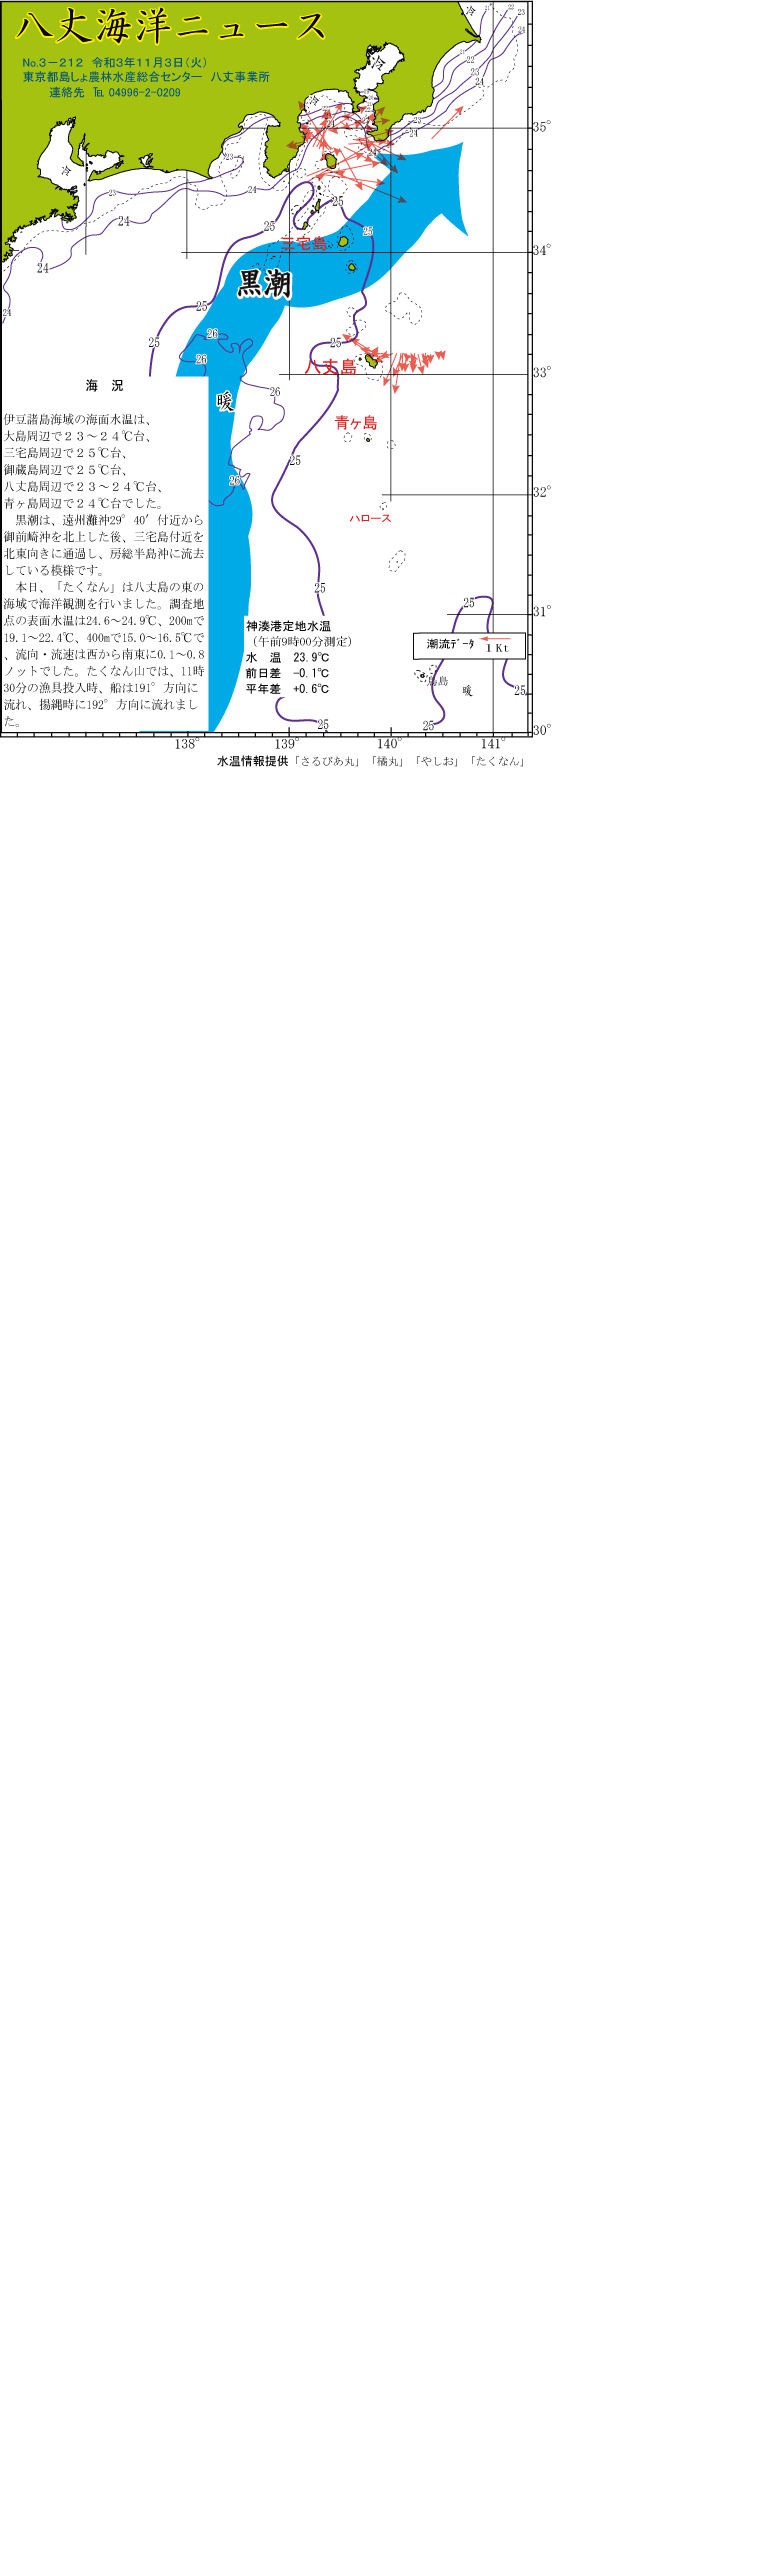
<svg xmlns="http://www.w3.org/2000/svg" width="773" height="2553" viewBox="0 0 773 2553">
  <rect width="100%" height="100%" fill="#fff"/>
  <image x="0" y="0" width="551" height="767" href="img/1.png"/>
</svg>
